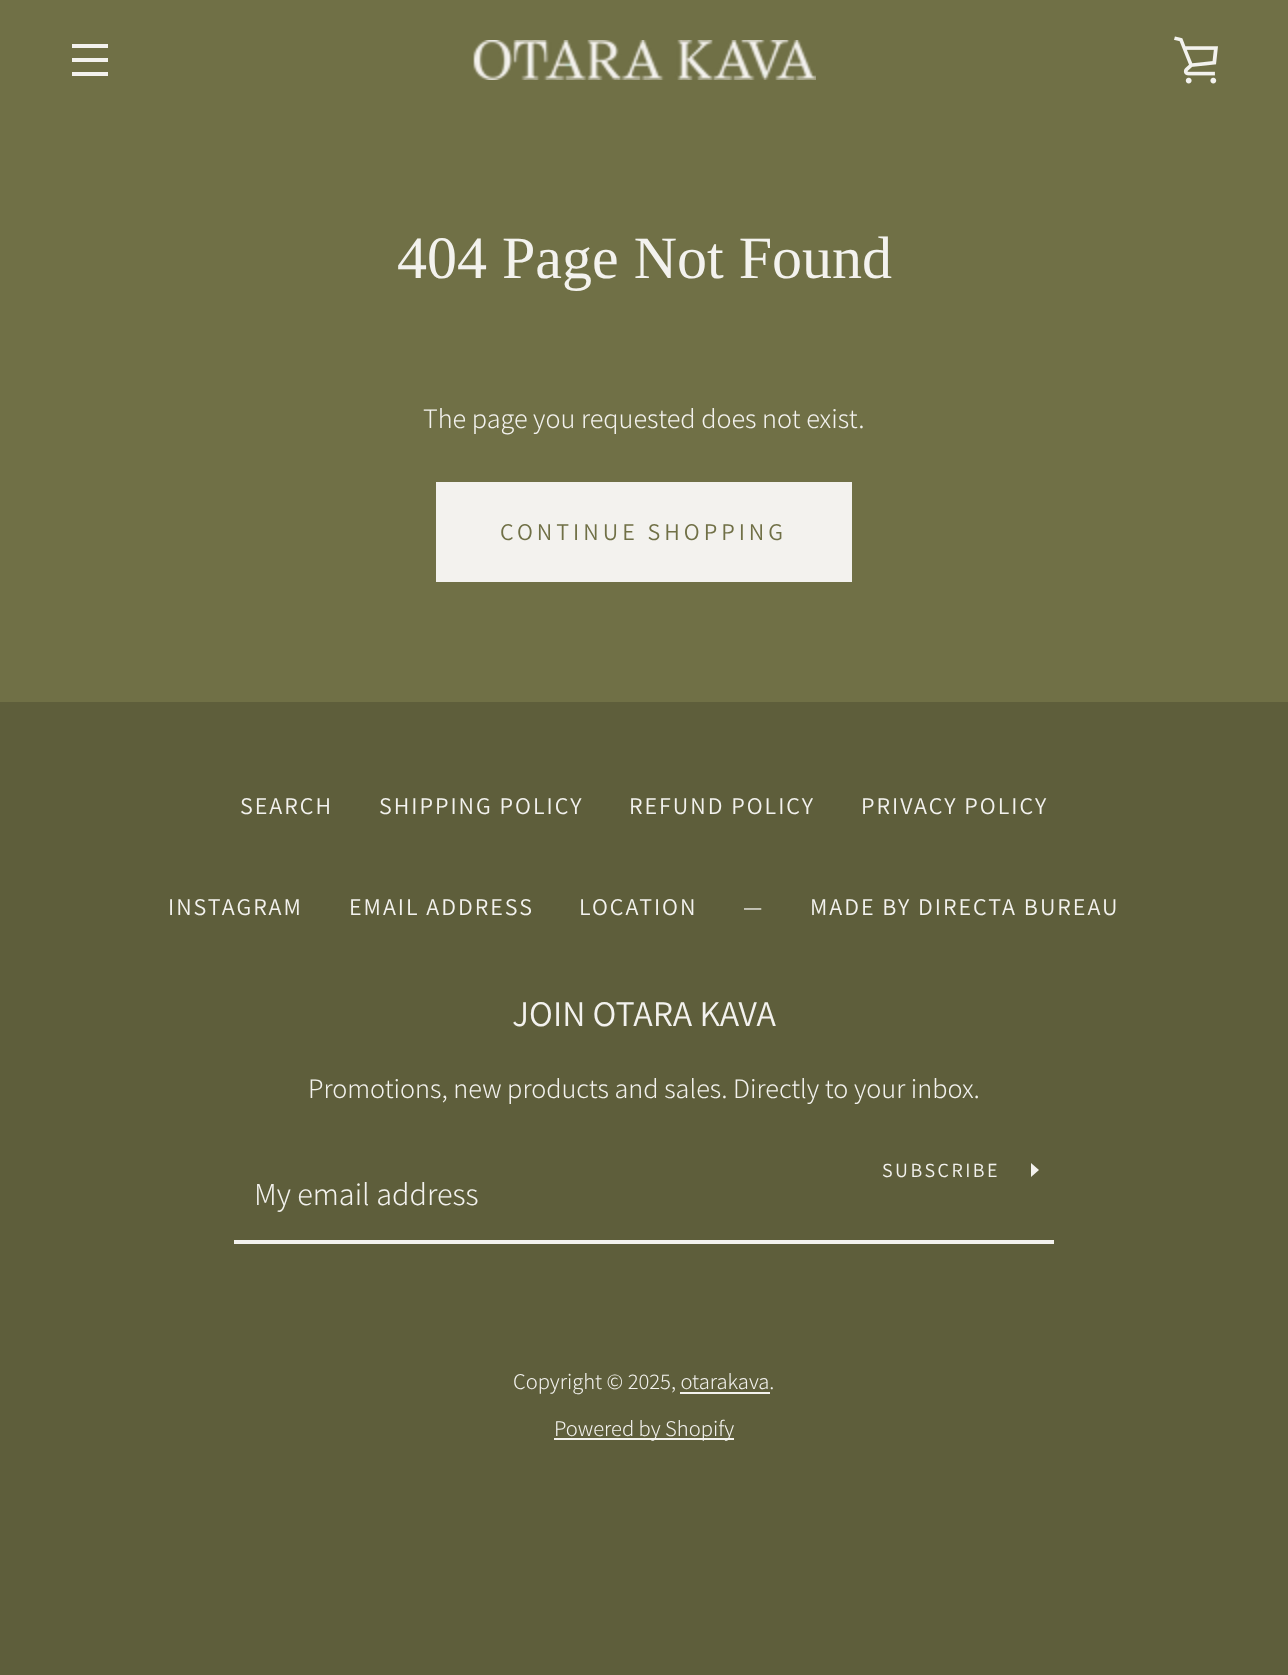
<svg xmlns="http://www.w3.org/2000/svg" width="1288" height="1675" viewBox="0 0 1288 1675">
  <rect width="100%" height="100%" fill="#5e5e3b"/>
  <path d="M0 0h1288v702H0z" fill="#707046"/>
  <path d="M72 44h36v4H72z" fill="#f3f2ee"/>
  <path d="M72 58h36v4H72z" fill="#f3f2ee"/>
  <path d="M72 72h36v4H72z" fill="#f3f2ee"/>
  <image x="473" y="40" width="343" height="40" href="img/1.png"/>
  <image x="1174" y="36" width="44" height="48" href="img/2.png"/>
  <path d="M436 482h416v100H436z" fill="#f3f2ee"/>
  <path d="M234 1240h820v4H234z" fill="#f3f2ee"/>
  <path d="M1039 1170L1031 1177V1163Z" fill="#f3f2ee"/>
  <path d="M680 1392h90v2H680z" fill="#f3f2ee"/>
  <path d="M554 1438h180v2H554z" fill="#f3f2ee"/>
  <text x="397" y="278" font-family="Liberation Serif" font-size="60" fill="#f3f2ee">404 Page Not Found</text>
  <text x="423" y="428" font-family="Assistant" font-size="28" font-weight="300" fill="#f3f2ee">The page you requested does not exist.</text>
  <text x="500" y="540" font-family="Assistant" font-size="24" letter-spacing="4" fill="#707046">CONTINUE SHOPPING</text>
  <g font-family="Assistant" font-size="24" letter-spacing="2" fill="#f3f2ee">
    <text x="240" y="814">SEARCH</text>
    <text x="379" y="814">SHIPPING POLICY</text>
    <text x="629" y="814">REFUND POLICY</text>
    <text x="861" y="814">PRIVACY POLICY</text>
    <text x="168" y="915">INSTAGRAM</text>
    <text x="349" y="915">EMAIL ADDRESS</text>
    <text x="579" y="915">LOCATION</text>
    <text x="743" y="915">—</text>
    <text x="810" y="915">MADE BY DIRECTA BUREAU</text>
  </g>
  <text x="512" y="1026" font-family="Assistant" font-size="36" fill="#f3f2ee">JOIN OTARA KAVA</text>
  <text x="308" y="1098" font-family="Assistant" font-size="28" font-weight="300" fill="#f3f2ee">Promotions, new products and sales. Directly to your inbox.</text>
  <text x="882" y="1177" font-family="Assistant" font-size="20" letter-spacing="2.5" fill="#f3f2ee">SUBSCRIBE</text>
  <text x="254" y="1205" font-family="Assistant" font-size="32" font-weight="300" fill="#f3f2ee">My email address</text>
  <g font-family="Assistant" font-size="22.4" font-weight="300" fill="#f3f2ee">
    <text x="513" y="1389">Copyright © 2025, otarakava.</text>
    <text x="554" y="1436">Powered by Shopify</text>
  </g>
</svg>
